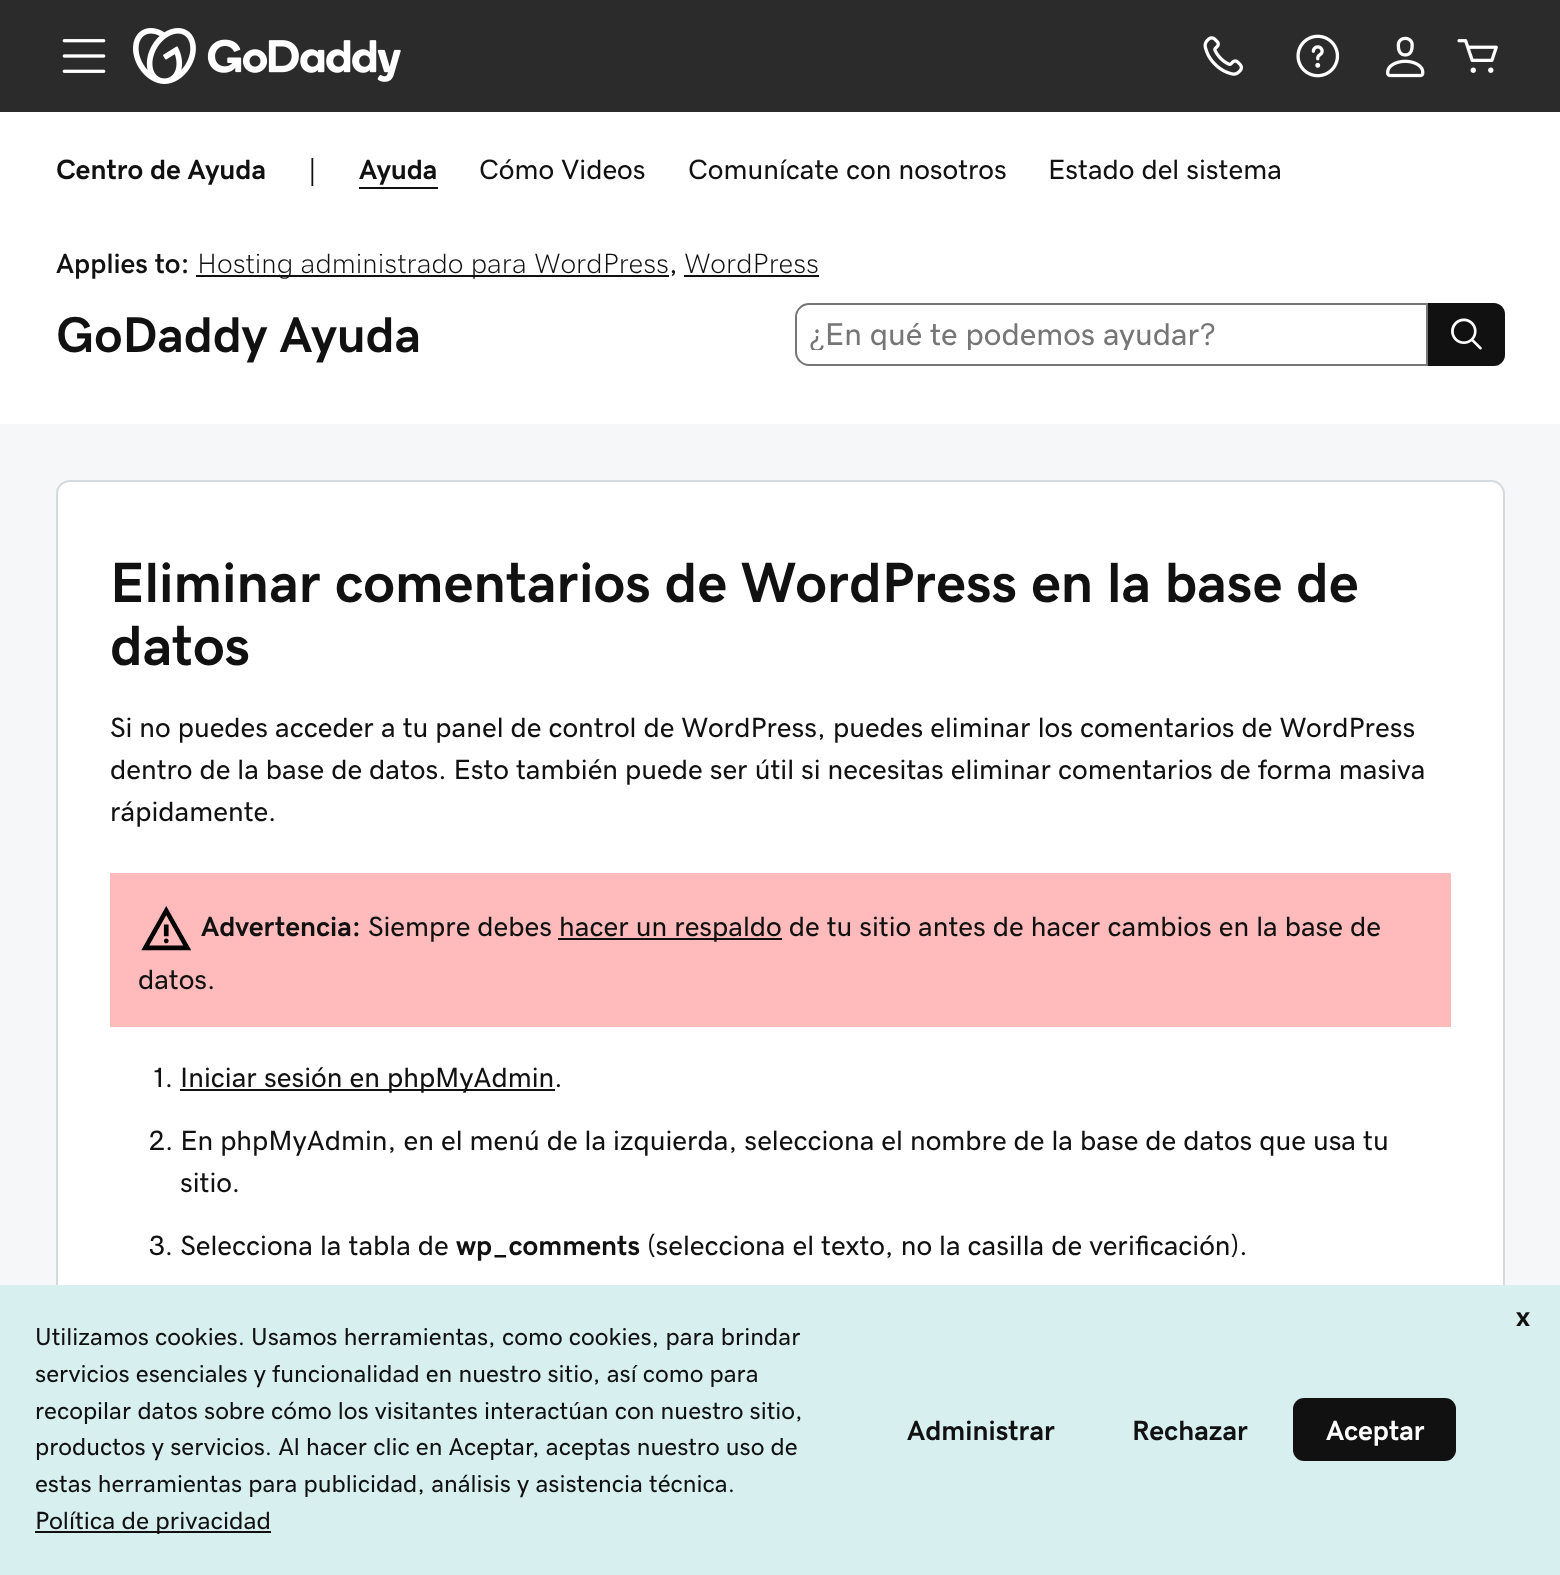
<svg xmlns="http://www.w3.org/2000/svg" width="1560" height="1575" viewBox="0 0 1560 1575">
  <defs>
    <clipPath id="clip1"><path d="M810 319h602v31H810z"/></clipPath>
  </defs>
  <rect width="100%" height="100%" fill="#fff"/>
  <path d="M0 0h1560v112H0z" fill="#2b2b2b"/>
  <image x="62" y="39" width="44" height="34" href="img/1.png"/>
  <image x="133" y="28" width="268" height="56" href="img/2.png"/>
  <image x="1203" y="36" width="40" height="40" href="img/3.png"/>
  <image x="1296" y="34" width="44" height="44" href="img/4.png"/>
  <image x="1386" y="36" width="39" height="42" href="img/5.png"/>
  <image x="1457" y="39" width="41" height="34" href="img/6.png"/>
  <path d="M359 187h79v2H359z" fill="#111"/>
  <path d="M196 275h473v2H196z" fill="#111"/>
  <path d="M684 275h135v2H684z" fill="#111"/>
  <path d="M809 304H1427V365H809C802 365 796 359 796 352V317C796 310 802 304 809 304Z" fill="none" stroke="#767676" stroke-width="2"/>
  <path d="M1428 303H1494C1500 303 1505 308 1505 314V355C1505 361 1500 366 1494 366H1428Z" fill="#111"/>
  <image x="1451" y="318" width="31" height="32" href="img/7.png"/>
  <path d="M0 424h1560v861H0z" fill="#f5f7f8"/>
  <rect x="57" y="481" width="1447" height="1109" rx="13" fill="#fff" stroke="#d4dbe0" stroke-width="2"/>
  <path d="M110 873h1341v154H110z" fill="#fbb"/>
  <image x="141" y="906" width="51" height="45" href="img/8.png"/>
  <path d="M558 938h224v2H558z" fill="#111"/>
  <path d="M180 1089h375v2H180z" fill="#111"/>
  <path d="M0 1285h1560v290H0z" fill="#d8efef"/>
  <path d="M35 1531h236v2H35z" fill="#111"/>
  <rect x="1293" y="1398" width="163" height="63" rx="11" fill="#111"/>
  <text x="56" y="179" font-family="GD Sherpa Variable" font-size="28" font-weight="bold" fill="#111">Centro de Ayuda</text>
  <text x="308" y="179" font-family="GD Sherpa Variable" font-size="28" fill="#111">|</text>
  <text x="359" y="179" font-family="GD Sherpa Variable" font-size="28" font-weight="bold" fill="#111">Ayuda</text>
  <g font-family="GD Sherpa Variable" font-size="28" fill="#111">
    <text x="479" y="179">Cómo Videos</text>
    <text x="688" y="179">Comunícate con nosotros</text>
    <text x="1048" y="179">Estado del sistema</text>
  </g>
  <text x="56" y="273" font-family="GD Sherpa Variable" font-size="28" font-weight="600" fill="#111">Applies to:</text>
  <text x="197" y="273" font-family="GD Sherpa Variable" font-size="28" font-weight="200" fill="#111">Hosting administrado para WordPress</text>
  <text x="669" y="273" font-family="GD Sherpa Variable" font-size="28" fill="#111">,</text>
  <text x="684" y="273" font-family="GD Sherpa Variable" font-size="28" font-weight="200" fill="#111">WordPress</text>
  <text x="56" y="352" font-family="GD Sherpa Variable" font-size="50.5" font-weight="bold" fill="#111">GoDaddy Ayuda</text>
  <g clip-path="url(#clip1)">
    <text x="809" y="345" font-family="GD Sherpa Variable" font-size="31.5" fill="#767676">¿En qué te podemos ayudar?</text>
  </g>
  <g font-family="GD Sherpa Variable" font-size="56.75" font-weight="800" fill="#111">
    <text x="110" y="602">Eliminar comentarios de WordPress en la base de</text>
    <text x="110" y="665">datos</text>
  </g>
  <g font-family="GD Sherpa Variable" font-size="28" fill="#111">
    <text x="110" y="737">Si no puedes acceder a tu panel de control de WordPress, puedes eliminar los comentarios de WordPress</text>
    <text x="110" y="779">dentro de la base de datos. Esto también puede ser útil si necesitas eliminar comentarios de forma masiva</text>
    <text x="110" y="821">rápidamente.</text>
  </g>
  <text x="201" y="936" font-family="GD Sherpa Variable" font-size="28" font-weight="bold" fill="#111">Advertencia:</text>
  <g font-family="GD Sherpa Variable" font-size="28" fill="#111">
    <text x="368" y="936">Siempre debes</text>
    <text x="559" y="936">hacer un respaldo de tu sitio antes de hacer cambios en la base de</text>
    <text x="138" y="989">datos.</text>
    <text x="152" y="1087">1.</text>
    <text x="180" y="1087">Iniciar sesión en phpMyAdmin.</text>
    <text x="149" y="1150">2. En phpMyAdmin, en el menú de la izquierda, selecciona el nombre de la base de datos que usa tu</text>
    <text x="180" y="1192">sitio.</text>
    <text x="149" y="1255">3. Selecciona la tabla de</text>
  </g>
  <text x="456" y="1255" font-family="GD Sherpa Variable" font-size="28" font-weight="bold" fill="#111">wp_comments</text>
  <text x="647" y="1255" font-family="GD Sherpa Variable" font-size="28" fill="#111">(selecciona el texto, no la casilla de verificación).</text>
  <text x="1516" y="1326" font-family="'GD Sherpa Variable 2'" font-size="28" font-weight="bold" fill="#111">x</text>
  <g font-family="GD Sherpa Variable" font-size="24.5" fill="#111">
    <text x="35" y="1345">Utilizamos cookies. Usamos herramientas, como cookies, para brindar</text>
    <text x="35" y="1382">servicios esenciales y funcionalidad en nuestro sitio, así como para</text>
    <text x="35" y="1419">recopilar datos sobre cómo los visitantes interactúan con nuestro sitio,</text>
    <text x="35" y="1455">productos y servicios. Al hacer clic en Aceptar, aceptas nuestro uso de</text>
    <text x="35" y="1492">estas herramientas para publicidad, análisis y asistencia técnica.</text>
  </g>
  <text x="35" y="1529" font-family="GD Sherpa Variable" font-size="24.9" fill="#111">Política de privacidad</text>
  <g font-family="'GD Sherpa Variable 2'" font-size="28" font-weight="bold" fill="#111">
    <text x="907" y="1440">Administrar</text>
    <text x="1132" y="1440">Rechazar</text>
  </g>
  <text x="1326" y="1440" font-family="'GD Sherpa Variable 2'" font-size="28" font-weight="bold" fill="#fff">Aceptar</text>
</svg>
